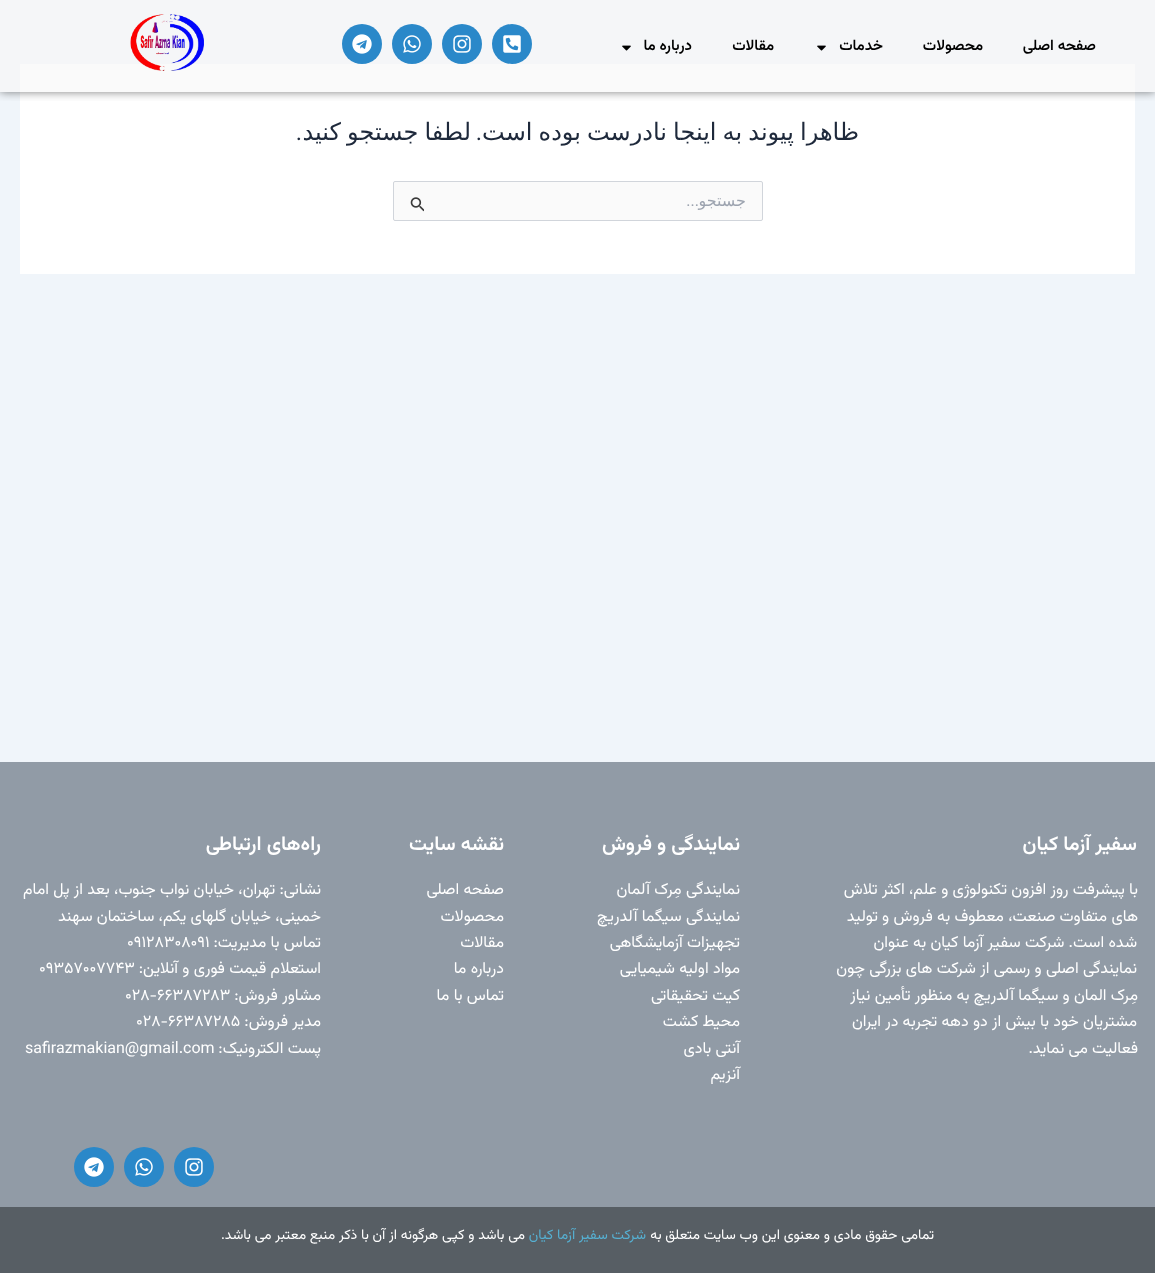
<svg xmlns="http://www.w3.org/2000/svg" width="1155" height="1273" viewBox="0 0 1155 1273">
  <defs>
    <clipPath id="clip1"><path d="M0 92h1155v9H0z"/></clipPath>
  </defs>
  <rect width="100%" height="100%" fill="#f0f5fa"/>
  <path d="M0 0h1155v92H0z" fill="#f5f6f8"/>
  <path d="M20 92h1115v182H20z" fill="#fff"/>
  <path d="M20 64h1115v28H20z" fill="#fafafa"/>
  <g clip-path="url(#clip1)">
    <path d="M0 -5h1155v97H0z" fill="#00000080" filter="blur(5px)"/>
  </g>
  <image x="817" y="45" width="9" height="6" href="img/1.png"/>
  <image x="622" y="45" width="9" height="6" href="img/1.png"/>
  <circle cx="512" cy="44" r="20" fill="#2a88c9"/>
  <image x="503" y="35" width="18" height="18" href="img/2.png"/>
  <circle cx="462" cy="44" r="20" fill="#2a88c9"/>
  <image x="453" y="35" width="18" height="18" href="img/3.png"/>
  <circle cx="412" cy="44" r="20" fill="#2a88c9"/>
  <image x="403" y="35" width="18" height="18" href="img/4.png"/>
  <circle cx="362" cy="44" r="20" fill="#2a88c9"/>
  <image x="352" y="34" width="20" height="20" href="img/5.png"/>
  <image x="130" y="14" width="74" height="57" href="img/6.png"/>
  <rect x="393.5" y="181.5" width="369" height="39" rx="1.5" fill="#fafafa" stroke="#d1d5db"/>
  <image x="410" y="197" width="14" height="15" href="img/7.png"/>
  <path d="M0 762h1155v445H0z" fill="#919ba6"/>
  <circle cx="194" cy="1167" r="20" fill="#2a88c9"/>
  <image x="185" y="1158" width="18" height="18" href="img/3.png"/>
  <circle cx="144" cy="1167" r="20" fill="#2a88c9"/>
  <image x="135" y="1158" width="18" height="18" href="img/4.png"/>
  <circle cx="94" cy="1167" r="20" fill="#2a88c9"/>
  <image x="84" y="1157" width="20" height="20" href="img/5.png"/>
  <path d="M0 1207h1155v66H0z" fill="#575e64"/>
  <g font-family="Vazirmatn" font-size="15" font-weight="600" direction="rtl" fill="#000">
    <text x="1096" y="50">صفحه اصلی</text>
    <text x="983" y="50">محصولات</text>
    <text x="883" y="50">خدمات</text>
    <text x="774" y="50">مقالات</text>
    <text x="692" y="50">درباره ما</text>
  </g>
  <text x="859" y="140" word-spacing="-1.5" font-family="DejaVu Sans" font-size="24" direction="rtl" fill="#1e293b">ظاهرا پیوند به اینجا نادرست بوده است</text>
  <text x="482" y="140" font-family="Roboto" font-size="24" direction="rtl" fill="#1e293b">.</text>
  <text x="471" y="140" word-spacing="-1.5" font-family="DejaVu Sans" font-size="24" direction="rtl" fill="#1e293b">لطفا جستجو کنید</text>
  <text x="302" y="140" font-family="Roboto" font-size="24" direction="rtl" fill="#1e293b">.</text>
  <text x="746" y="206" font-family="DejaVu Sans" font-size="16" direction="rtl" fill="#9ca3af">جستجو</text>
  <text x="699" y="206" font-family="Roboto" font-size="16" direction="rtl" fill="#9ca3af">...</text>
  <text x="1137" y="850" font-family="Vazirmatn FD" font-size="20" font-weight="600" direction="rtl" fill="#fff">سفیر آزما کیان</text>
  <g font-family="Vazirmatn FD" font-size="16" direction="rtl" fill="#fff">
    <text x="1138" y="894">با پیشرفت روز افزون تکنولوژی و علم، اکثر تلاش</text>
    <text x="1138" y="921">های متفاوت صنعت، معطوف به فروش و تولید</text>
    <text x="1137" y="947">شده است. شرکت سفیر آزما کیان به عنوان</text>
    <text x="1137" y="973">نمایندگی اصلی و رسمی از شرکت های بزرگی چون</text>
    <text x="1138" y="1000">مِرک المان و سیگما آلدریچ به منظور تأمین نیاز</text>
    <text x="1137" y="1026">مشتریان خود با بیش از دو دهه تجربه در ایران</text>
    <text x="1138" y="1053">فعالیت می نماید.</text>
  </g>
  <text x="740" y="850" font-family="Vazirmatn FD" font-size="20" font-weight="600" direction="rtl" fill="#fff">نمایندگی و فروش</text>
  <g font-family="Vazirmatn FD" font-size="16" direction="rtl" fill="#fff">
    <text x="740" y="894">نمایندگی مِرک آلمان</text>
    <text x="740" y="921">نمایندگی سیگما آلدریچ</text>
    <text x="740" y="947">تجهیزات آزمایشگاهی</text>
    <text x="740" y="973">مواد اولیه شیمیایی</text>
    <text x="740" y="1000">کیت تحقیقاتی</text>
    <text x="740" y="1026">محیط کشت</text>
    <text x="740" y="1053">آنتی بادی</text>
    <text x="740" y="1079">آنزیم</text>
  </g>
  <text x="504" y="850" font-family="Vazirmatn FD" font-size="20" font-weight="600" direction="rtl" fill="#fff">نقشه سایت</text>
  <g font-family="Vazirmatn FD" font-size="16" direction="rtl" fill="#fff">
    <text x="504" y="894">صفحه اصلی</text>
    <text x="504" y="921">محصولات</text>
    <text x="504" y="947">مقالات</text>
    <text x="504" y="973">درباره ما</text>
    <text x="504" y="1000">تماس با ما</text>
  </g>
  <text x="321" y="850" font-family="Vazirmatn FD" font-size="20" font-weight="600" direction="rtl" fill="#fff">راه‌های ارتباطی</text>
  <g font-family="Vazirmatn FD" font-size="16" direction="rtl" fill="#fff">
    <text x="321" y="894">نشانی: تهران، خیابان نواب جنوب، بعد از پل امام</text>
    <text x="321" y="921">خمینی، خیابان گلهای یکم، ساختمان سهند</text>
    <text x="321" y="947">تماس با مدیریت:</text>
  </g>
  <text x="127" y="947" font-family="Vazirmatn FD" font-size="16" fill="#fff">09128308091</text>
  <text x="321" y="973" font-family="Vazirmatn FD" font-size="16" direction="rtl" fill="#fff">استعلام قیمت فوری و آنلاین:</text>
  <text x="39" y="973" font-family="Vazirmatn FD" font-size="16" fill="#fff">09357007743</text>
  <text x="321" y="1000" font-family="Vazirmatn FD" font-size="16" direction="rtl" fill="#fff">مشاور فروش:</text>
  <text x="125" y="1000" font-family="Vazirmatn FD" font-size="16" fill="#fff">028-66387283</text>
  <text x="321" y="1026" font-family="Vazirmatn FD" font-size="16" direction="rtl" fill="#fff">مدیر فروش:</text>
  <text x="136" y="1026" font-family="Vazirmatn FD" font-size="16" fill="#fff">028-66387285</text>
  <text x="321" y="1053" font-family="Vazirmatn FD" font-size="16" direction="rtl" fill="#fff">پست الکترونیک:</text>
  <text x="25" y="1053" font-family="Vazirmatn FD" font-size="16" fill="#fff">safirazmakian@gmail.com</text>
  <text x="934" y="1239" font-family="Vazirmatn FD" font-size="14" direction="rtl" fill="#fff">تمامی حقوق مادی و معنوی این وب سایت متعلق به</text>
  <text x="646" y="1239" font-family="Vazirmatn FD" font-size="14" direction="rtl" fill="#56b0d2">شرکت سفیر آزما کیان</text>
  <text x="525" y="1239" font-family="Vazirmatn FD" font-size="14" direction="rtl" fill="#fff">می باشد و کپی هرگونه از آن با ذکر منبع معتبر می باشد.</text>
</svg>
